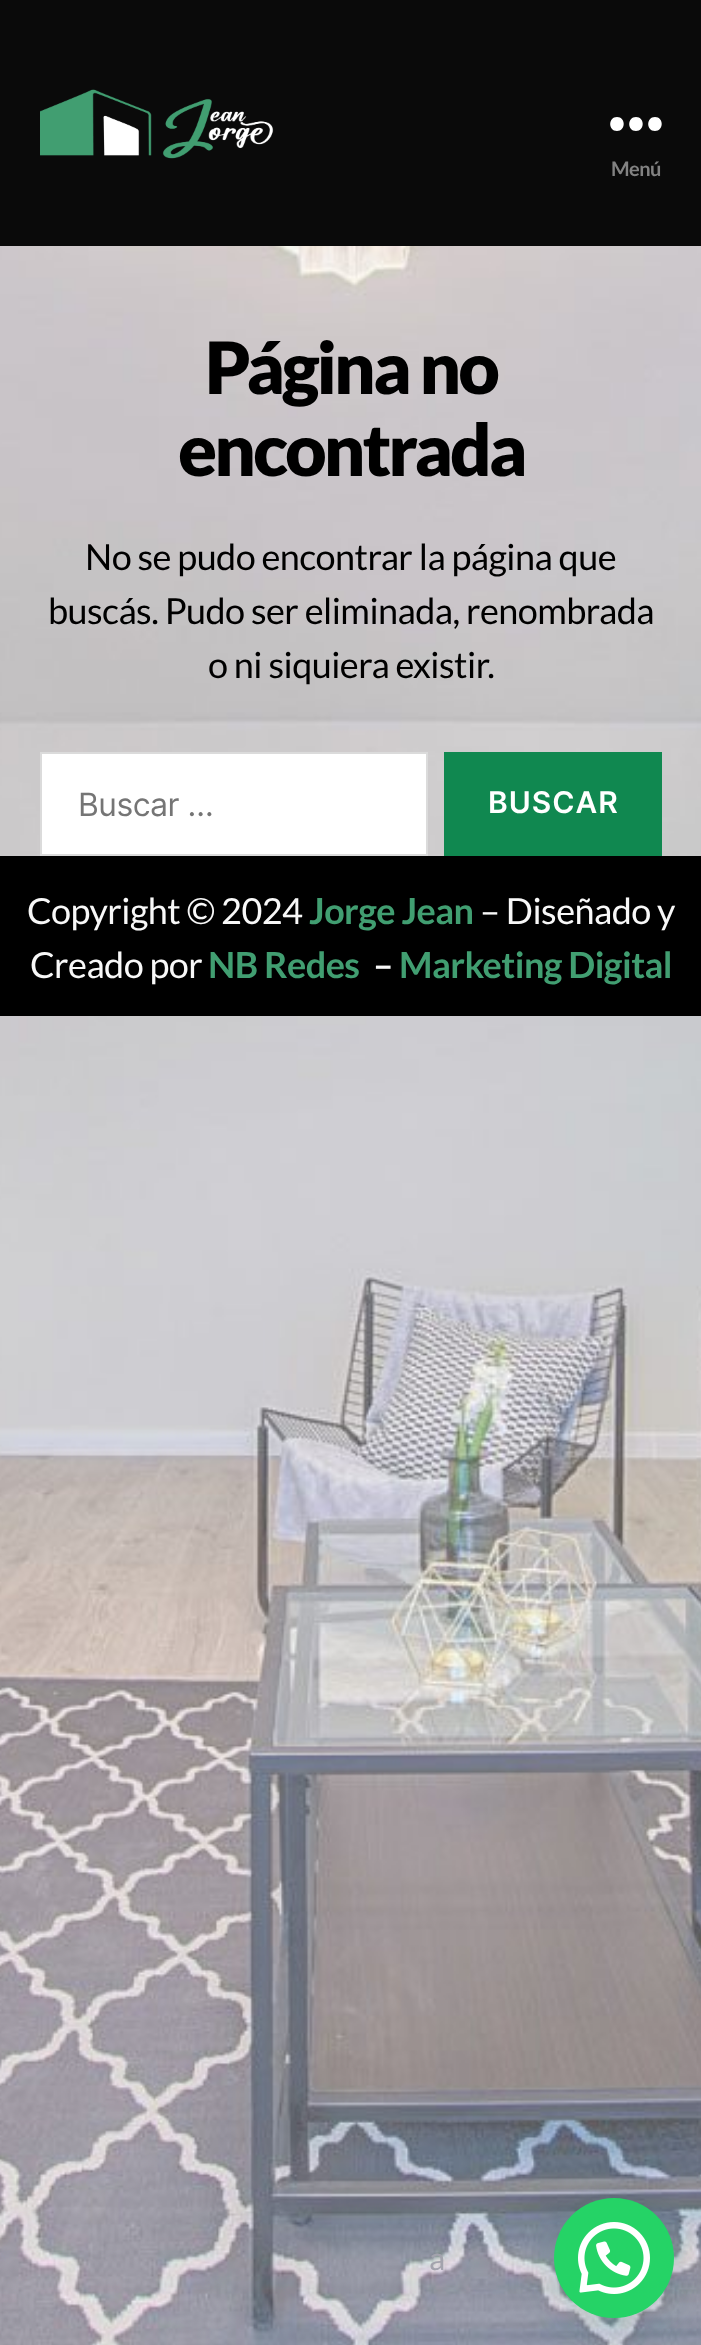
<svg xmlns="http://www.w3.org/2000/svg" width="701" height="2345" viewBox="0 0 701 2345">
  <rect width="100%" height="100%" fill="#fff"/>
  <image x="0" y="246" width="701" height="2099" href="img/1.png"/>
  <path d="M0 0h701v246H0z" fill="#0a0a0a"/>
  <image x="40" y="89" width="234" height="70" href="img/2.png"/>
  <path d="M617 131C608 131 608 117 617 117C626 117 626 131 617 131ZM636 131C627 131 627 117 636 117C645 117 645 131 636 131ZM655 131C646 131 646 117 655 117C664 117 664 131 655 131Z" fill="#fff" fill-rule="evenodd"/>
  <path d="M41 753h386v102H41z" fill="#fff" stroke="#dbdbdb" stroke-width="2"/>
  <path d="M444 752h218v104H444z" fill="#108850"/>
  <path d="M0 856h701v160H0z" fill="#000"/>
  <rect x="556" y="2210" width="120" height="120" rx="60" fill="#075e543d" filter="blur(24px)"/>
  <circle cx="614" cy="2258" r="60" fill="#25d366"/>
  <image x="578" y="2222" width="72" height="72" href="img/3.png"/>
  <text x="611" y="176" font-family="Lato" font-size="20" font-weight="bold" letter-spacing="-0.55" fill="#828282">Menú</text>
  <g font-family="Lato" font-size="72" font-weight="900" letter-spacing="-3" fill="#000">
    <text x="205" y="394">Página no</text>
    <text x="178" y="476">encontrada</text>
  </g>
  <g font-family="Lato" font-size="36" letter-spacing="-0.55" fill="#000">
    <text x="85" y="570">No se pudo encontrar la página que</text>
    <text x="48" y="624">buscás. Pudo ser eliminada, renombrada</text>
    <text x="208" y="678">o ni siquiera existir.</text>
  </g>
  <text x="78" y="816" font-family="Inter" font-size="32" letter-spacing="-0.5" fill="#757575">Buscar …</text>
  <text x="488" y="813" font-family="Inter" font-size="30" font-weight="600" letter-spacing="1" fill="#fff">BUSCAR</text>
  <text x="27" y="924" font-family="Lato" font-size="36" letter-spacing="-0.55" fill="#f8f8f8">Copyright © 2024</text>
  <text x="309" y="924" font-family="Lato" font-size="36" font-weight="bold" letter-spacing="-0.55" fill="#419e71">Jorge Jean</text>
  <g font-family="Lato" font-size="36" letter-spacing="-0.55" fill="#f8f8f8">
    <text x="480" y="924">– Diseñado y</text>
    <text x="30" y="978">Creado por</text>
  </g>
  <text x="208" y="978" font-family="Lato" font-size="36" font-weight="bold" letter-spacing="-0.55" fill="#419e71">NB Redes</text>
  <text x="373" y="978" font-family="Lato" font-size="36" font-weight="bold" letter-spacing="-0.55" fill="#f8f8f8">–</text>
  <text x="399" y="978" font-family="Lato" font-size="36" font-weight="bold" letter-spacing="-0.55" fill="#419e71">Marketing Digital</text>
  <text x="429" y="2270" font-family="Lato" font-size="32" fill="#a3a3ad">a</text>
</svg>
